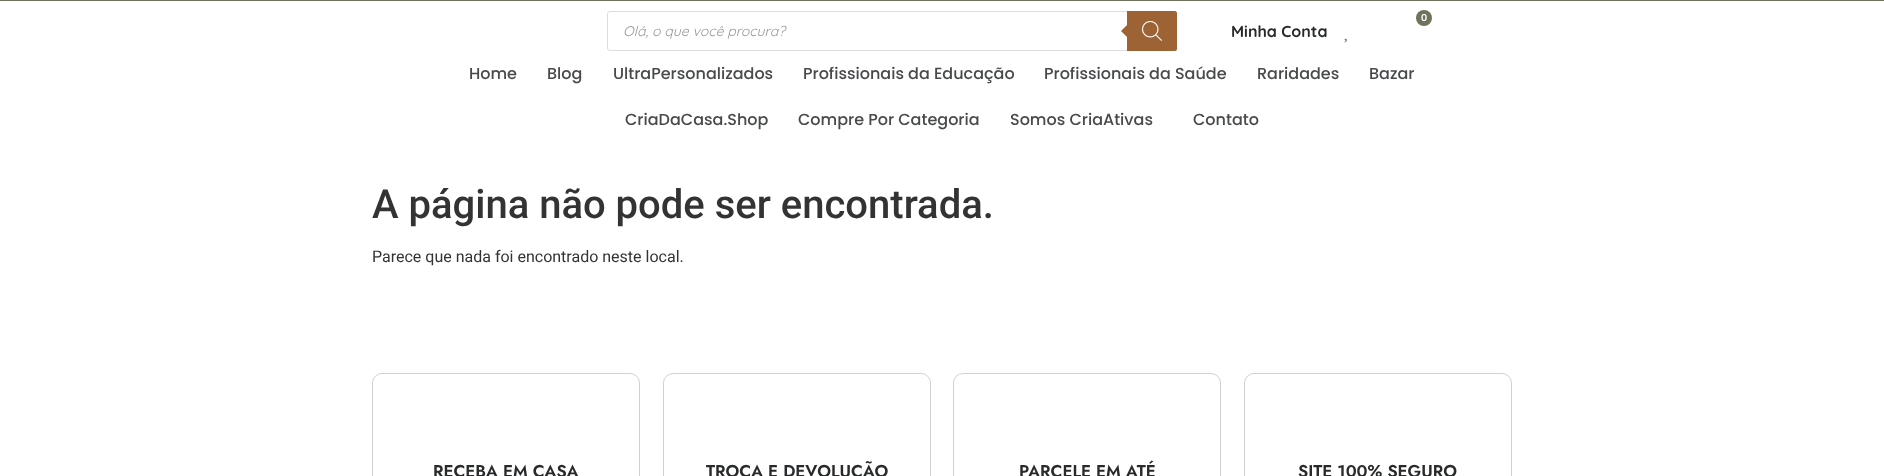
<svg xmlns="http://www.w3.org/2000/svg" width="1884" height="476" viewBox="0 0 1884 476">
  <rect width="100%" height="100%" fill="#fff"/>
  <path d="M0 0h1884v1H0z" fill="#6f735c"/>
  <circle cx="1424" cy="18" r="8" fill="#6f735c"/>
  <rect x="607.5" y="11.5" width="569" height="39" rx="2.5" fill="none" stroke="#ddd"/>
  <path d="M1127 11H1175C1176 11 1177 12 1177 13V49C1177 50 1176 51 1175 51H1127Z" fill="#9d6335"/>
  <path d="M1129 23V39L1121 31Z" fill="#9d6335"/>
  <image x="1142" y="21" width="20" height="20" href="img/1.png"/>
  <image x="1344" y="38" width="3" height="5" href="img/2.png"/>
  <rect x="372.5" y="373.5" width="267" height="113" rx="9.5" fill="none" stroke="#d5d0d0"/>
  <rect x="663.5" y="373.5" width="267" height="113" rx="9.5" fill="none" stroke="#d5d0d0"/>
  <rect x="953.5" y="373.5" width="267" height="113" rx="9.5" fill="none" stroke="#d5d0d0"/>
  <rect x="1244.5" y="373.5" width="267" height="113" rx="9.5" fill="none" stroke="#d5d0d0"/>
  <text x="1421" y="21" font-family="Quicksand" font-size="10" font-weight="bold" fill="#fff">0</text>
  <text x="623" y="36" font-family="Quicksand" font-size="14" font-style="italic" fill="#999">Olá, o que você procura?</text>
  <text x="1231" y="37" font-family="Quicksand" font-size="16" font-weight="bold" fill="#282a2c">Minha Conta</text>
  <g font-family="Poppins" font-size="16" font-weight="500" fill="#484a4c">
    <text x="469" y="79">Home</text>
    <text x="547" y="79">Blog</text>
    <text x="613" y="79">UltraPersonalizados</text>
    <text x="803" y="79">Profissionais da Educação</text>
    <text x="1044" y="79">Profissionais da Saúde</text>
    <text x="1257" y="79">Raridades</text>
    <text x="1369" y="79">Bazar</text>
    <text x="625" y="125">CriaDaCasa.Shop</text>
    <text x="798" y="125">Compre Por Categoria</text>
    <text x="1010" y="125">Somos CriaAtivas</text>
    <text x="1193" y="125">Contato</text>
  </g>
  <text x="372" y="218" font-family="Roboto" font-size="40" font-weight="500" fill="#333">A página não pode ser encontrada.</text>
  <text x="372" y="262" font-family="Roboto" font-size="16" fill="#333">Parece que nada foi encontrado neste local.</text>
  <g font-family="Jost" font-size="17" font-weight="600" fill="#282a2c">
    <text x="433" y="477">RECEBA EM CASA</text>
    <text x="706" y="477">TROCA E DEVOLUÇÃO</text>
    <text x="1019" y="477">PARCELE EM ATÉ</text>
    <text x="1298" y="477">SITE 100% SEGURO</text>
  </g>
</svg>
